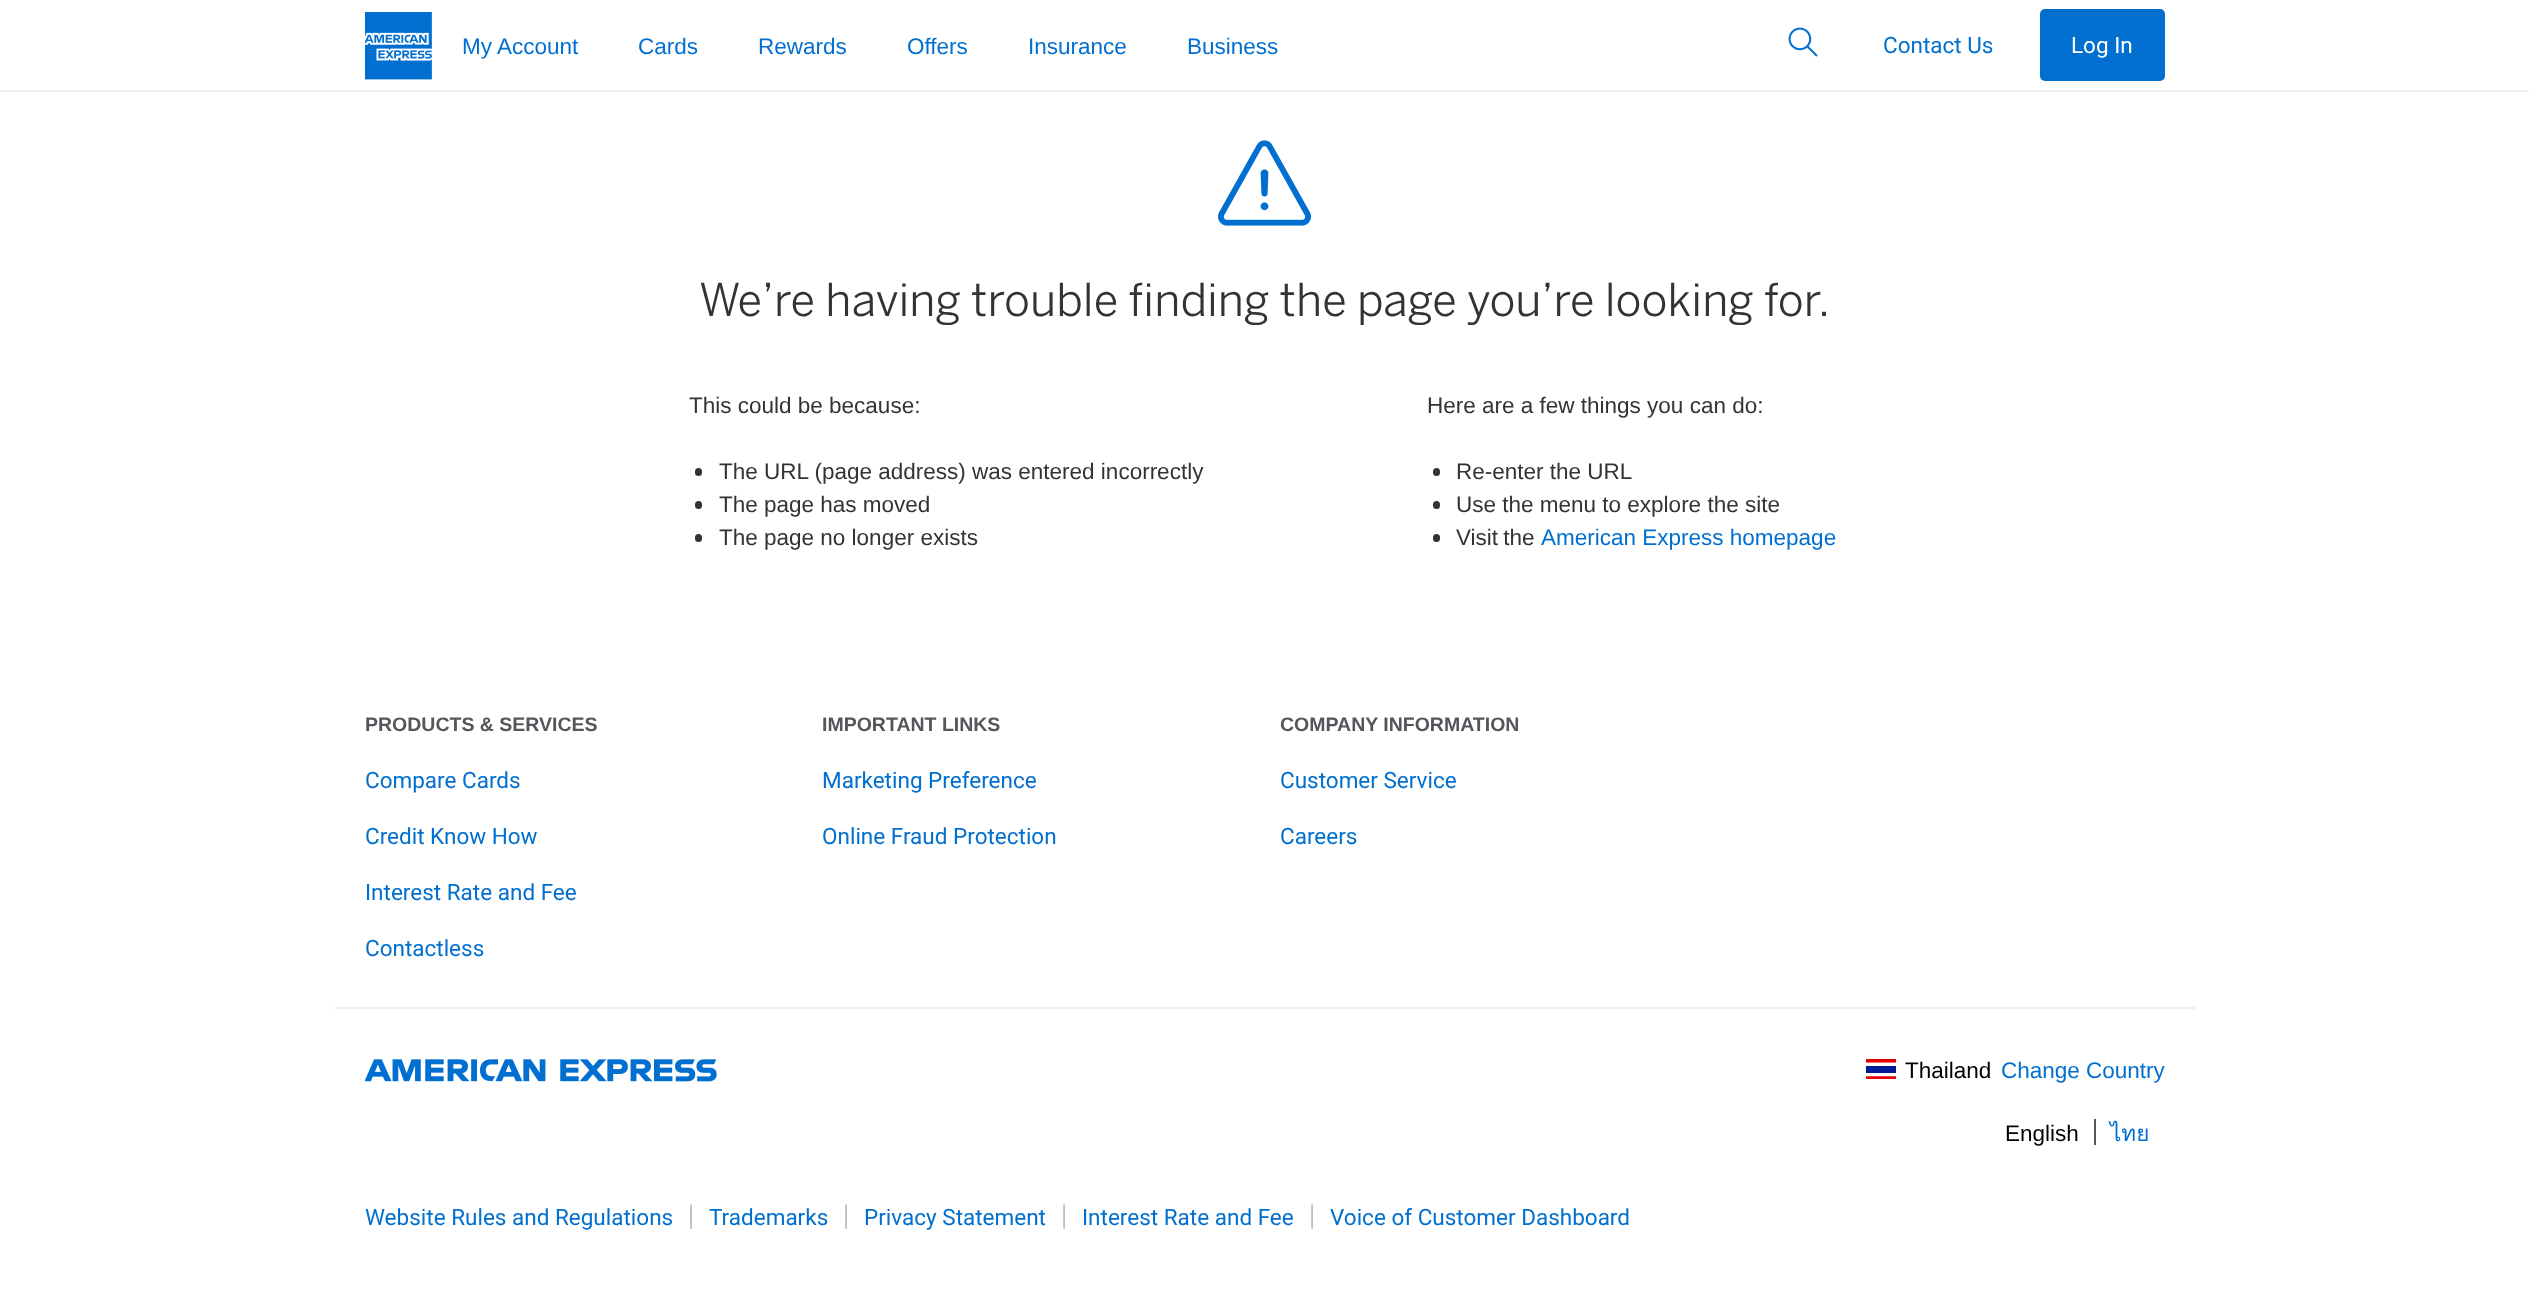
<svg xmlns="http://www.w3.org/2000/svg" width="2529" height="1294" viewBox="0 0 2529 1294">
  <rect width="100%" height="100%" fill="#fff"/>
  <path d="M0 90h2529v2H0z" fill="#ecedee"/>
  <image x="365" y="12" width="67" height="68" href="img/1.png"/>
  <image x="1788" y="27" width="30" height="30" href="img/2.png"/>
  <rect x="2040" y="9" width="125" height="72" rx="5" fill="#006fcf"/>
  <image x="1218" y="140" width="93" height="86" href="img/3.png"/>
  <rect x="695" y="468" width="7" height="8" rx="3.5" fill="#333"/>
  <rect x="695" y="501" width="7" height="8" rx="3.5" fill="#333"/>
  <rect x="695" y="534" width="7" height="8" rx="3.5" fill="#333"/>
  <rect x="1433" y="468" width="7" height="8" rx="3.5" fill="#333"/>
  <rect x="1433" y="501" width="7" height="8" rx="3.5" fill="#333"/>
  <rect x="1433" y="534" width="7" height="8" rx="3.5" fill="#333"/>
  <path d="M335 1007h1860v2H335z" fill="#ecedee"/>
  <image x="365" y="1059" width="352" height="23" href="img/4.png"/>
  <image x="1866" y="1059" width="30" height="20" href="img/5.png"/>
  <path d="M2094 1119h2v26H2094z" fill="#53565a"/>
  <g font-family="Liberation Sans" font-size="22.5" fill="#006fcf">
    <text x="462" y="54">My Account</text>
    <text x="638" y="54">Cards</text>
    <text x="758" y="54">Rewards</text>
    <text x="907" y="54">Offers</text>
    <text x="1028" y="54">Insurance</text>
    <text x="1187" y="54">Business</text>
  </g>
  <text x="1883" y="53" font-family="Roboto" font-size="22.5" fill="#006fcf">Contact Us</text>
  <text x="2071" y="53" font-family="Roboto" font-size="22.5" fill="#fff">Log In</text>
  <text x="699" y="316" font-family="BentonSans" font-size="45" fill="#333">We’re having trouble finding the page you’re looking for.</text>
  <g font-family="Liberation Sans" font-size="22.5" fill="#333">
    <text x="689" y="413">This could be because:</text>
    <text x="719" y="479">The URL (page address) was entered incorrectly</text>
    <text x="719" y="512">The page has moved</text>
    <text x="719" y="545">The page no longer exists</text>
    <text x="1427" y="413">Here are a few things you can do:</text>
    <text x="1456" y="479">Re-enter the URL</text>
    <text x="1456" y="512">Use the menu to explore the site</text>
    <text x="1456" y="545" word-spacing="-1">Visit the</text>
  </g>
  <text x="1541" y="545" font-family="Liberation Sans" font-size="22.5" fill="#006fcf">American Express homepage</text>
  <text x="365" y="731" font-family="Liberation Sans" font-size="19.5" font-weight="bold" fill="#53565a">PRODUCTS &amp; SERVICES</text>
  <g font-family="Roboto" font-size="22.5" fill="#006fcf">
    <text x="365" y="788">Compare Cards</text>
    <text x="365" y="844">Credit Know How</text>
    <text x="365" y="900">Interest Rate and Fee</text>
    <text x="365" y="956">Contactless</text>
  </g>
  <text x="822" y="731" font-family="Liberation Sans" font-size="19.5" font-weight="bold" fill="#53565a">IMPORTANT LINKS</text>
  <g font-family="Roboto" font-size="22.5" fill="#006fcf">
    <text x="822" y="788">Marketing Preference</text>
    <text x="822" y="844">Online Fraud Protection</text>
  </g>
  <text x="1280" y="731" font-family="Liberation Sans" font-size="19.5" font-weight="bold" fill="#53565a">COMPANY INFORMATION</text>
  <g font-family="Roboto" font-size="22.5" fill="#006fcf">
    <text x="1280" y="788">Customer Service</text>
    <text x="1280" y="844">Careers</text>
  </g>
  <text x="1905" y="1078" font-family="Liberation Sans" font-size="22.5" fill="#000">Thailand</text>
  <text x="2001" y="1078" font-family="Liberation Sans" font-size="22.5" fill="#006fcf">Change Country</text>
  <text x="2005" y="1141" font-family="Liberation Sans" font-size="22.5" fill="#000">English</text>
  <text x="2110" y="1141" font-family="Loma" font-size="22.5" fill="#006fcf">ไทย</text>
  <text x="365" y="1225" font-family="Roboto" font-size="22.5" fill="#006fcf">Website Rules and Regulations</text>
  <text x="688" y="1225" font-family="Roboto" font-size="29" font-weight="200" fill="#8e9092">|</text>
  <text x="709" y="1225" font-family="Roboto" font-size="22.5" fill="#006fcf">Trademarks</text>
  <text x="843" y="1225" font-family="Roboto" font-size="29" font-weight="200" fill="#8e9092">|</text>
  <text x="864" y="1225" font-family="Roboto" font-size="22.5" fill="#006fcf">Privacy Statement</text>
  <text x="1061" y="1225" font-family="Roboto" font-size="29" font-weight="200" fill="#8e9092">|</text>
  <text x="1082" y="1225" font-family="Roboto" font-size="22.5" fill="#006fcf">Interest Rate and Fee</text>
  <text x="1309" y="1225" font-family="Roboto" font-size="29" font-weight="200" fill="#8e9092">|</text>
  <text x="1330" y="1225" font-family="Roboto" font-size="22.5" fill="#006fcf">Voice of Customer Dashboard</text>
</svg>
